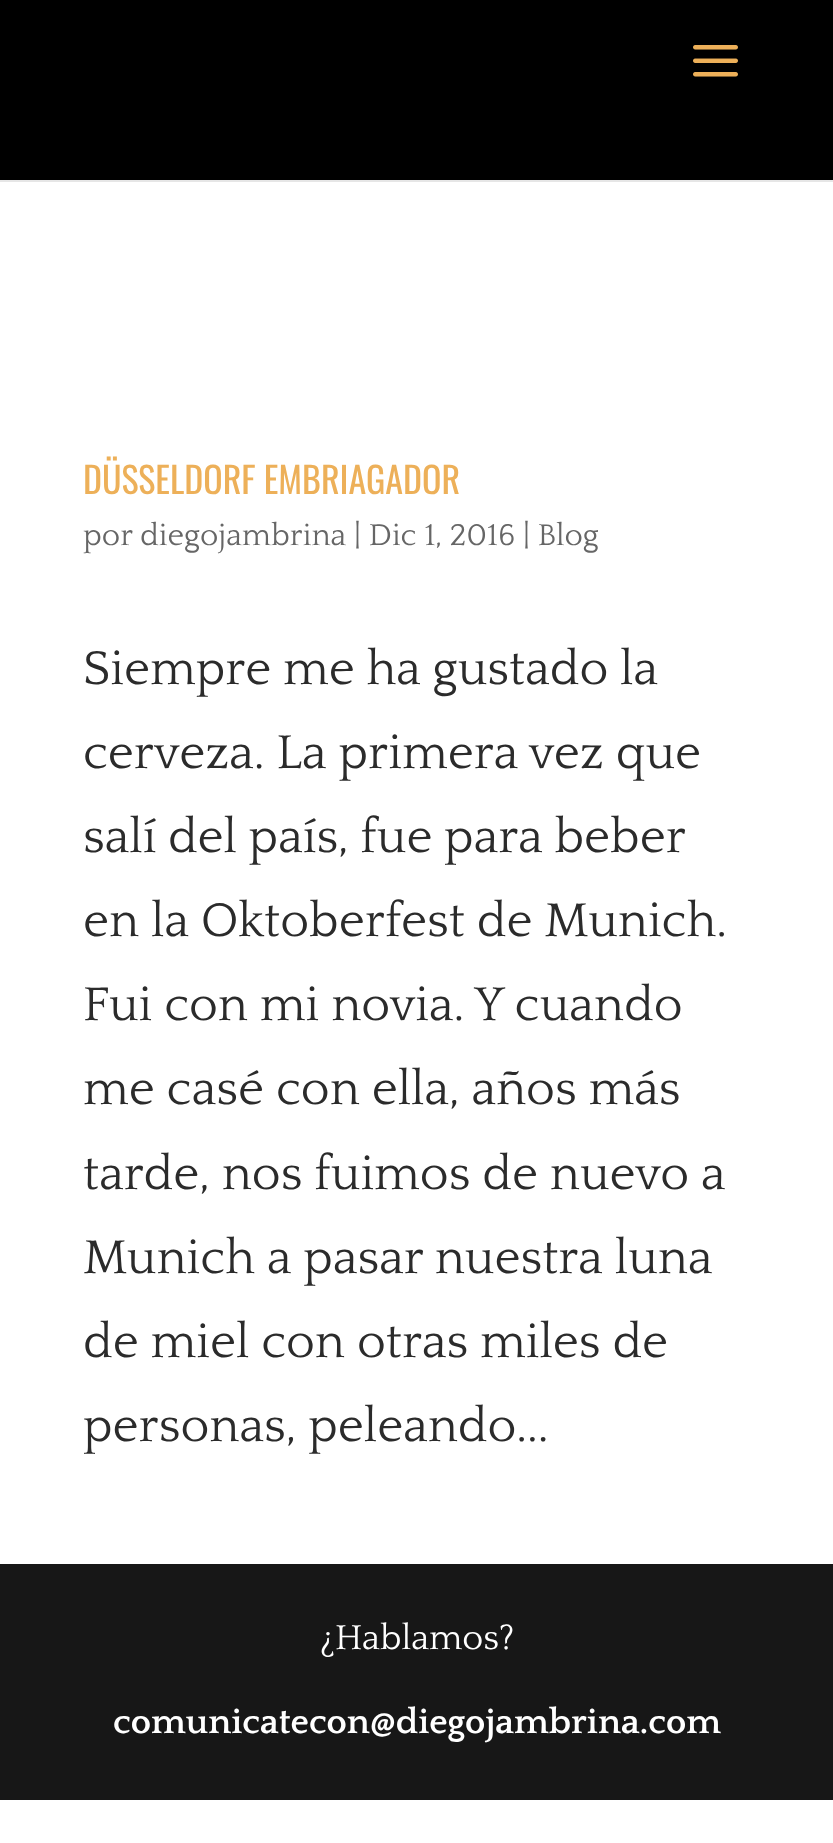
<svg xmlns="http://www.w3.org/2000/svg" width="833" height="1843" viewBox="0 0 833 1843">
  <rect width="100%" height="100%" fill="#fff"/>
  <path d="M0 180V182H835V2V180Z" fill="#e6e6e6"/>
  <path d="M0 0h833v180H0z" fill="#000"/>
  <image x="693" y="45" width="45" height="32" href="img/1.png"/>
  <path d="M0 1564h833v236H0z" fill="#171717"/>
  <text x="83" y="494" font-family="Oswald" font-size="36" fill="#edb059">DÜSSELDORF EMBRIAGADOR</text>
  <text x="83" y="545" font-family="Quattrocento" font-size="31.5" fill="#666">por diegojambrina | Dic 1, 2016 | Blog</text>
  <g font-family="Quattrocento" font-size="49.5" fill="#2b2b2b">
    <text x="83" y="684">Siempre me ha gustado la</text>
    <text x="83" y="768">cerveza. La primera vez que</text>
    <text x="83" y="852" word-spacing="-0.25">salí del país, fue para beber</text>
    <text x="83" y="936">en la Oktoberfest de Munich.</text>
    <text x="83" y="1020">Fui con mi novia. Y cuando</text>
    <text x="83" y="1104">me casé con ella, años más</text>
    <text x="83" y="1189">tarde, nos fuimos de nuevo a</text>
    <text x="83" y="1273">Munich a pasar nuestra luna</text>
    <text x="83" y="1357">de miel con otras miles de</text>
    <text x="83" y="1441">personas, peleando...</text>
  </g>
  <text x="320" y="1649" font-family="Quattrocento" font-size="36" fill="#fff">¿Hablamos?</text>
  <text x="113" y="1733" font-family="Quattrocento" font-size="36" font-weight="bold" fill="#fff">comunicatecon@diegojambrina.com</text>
</svg>
